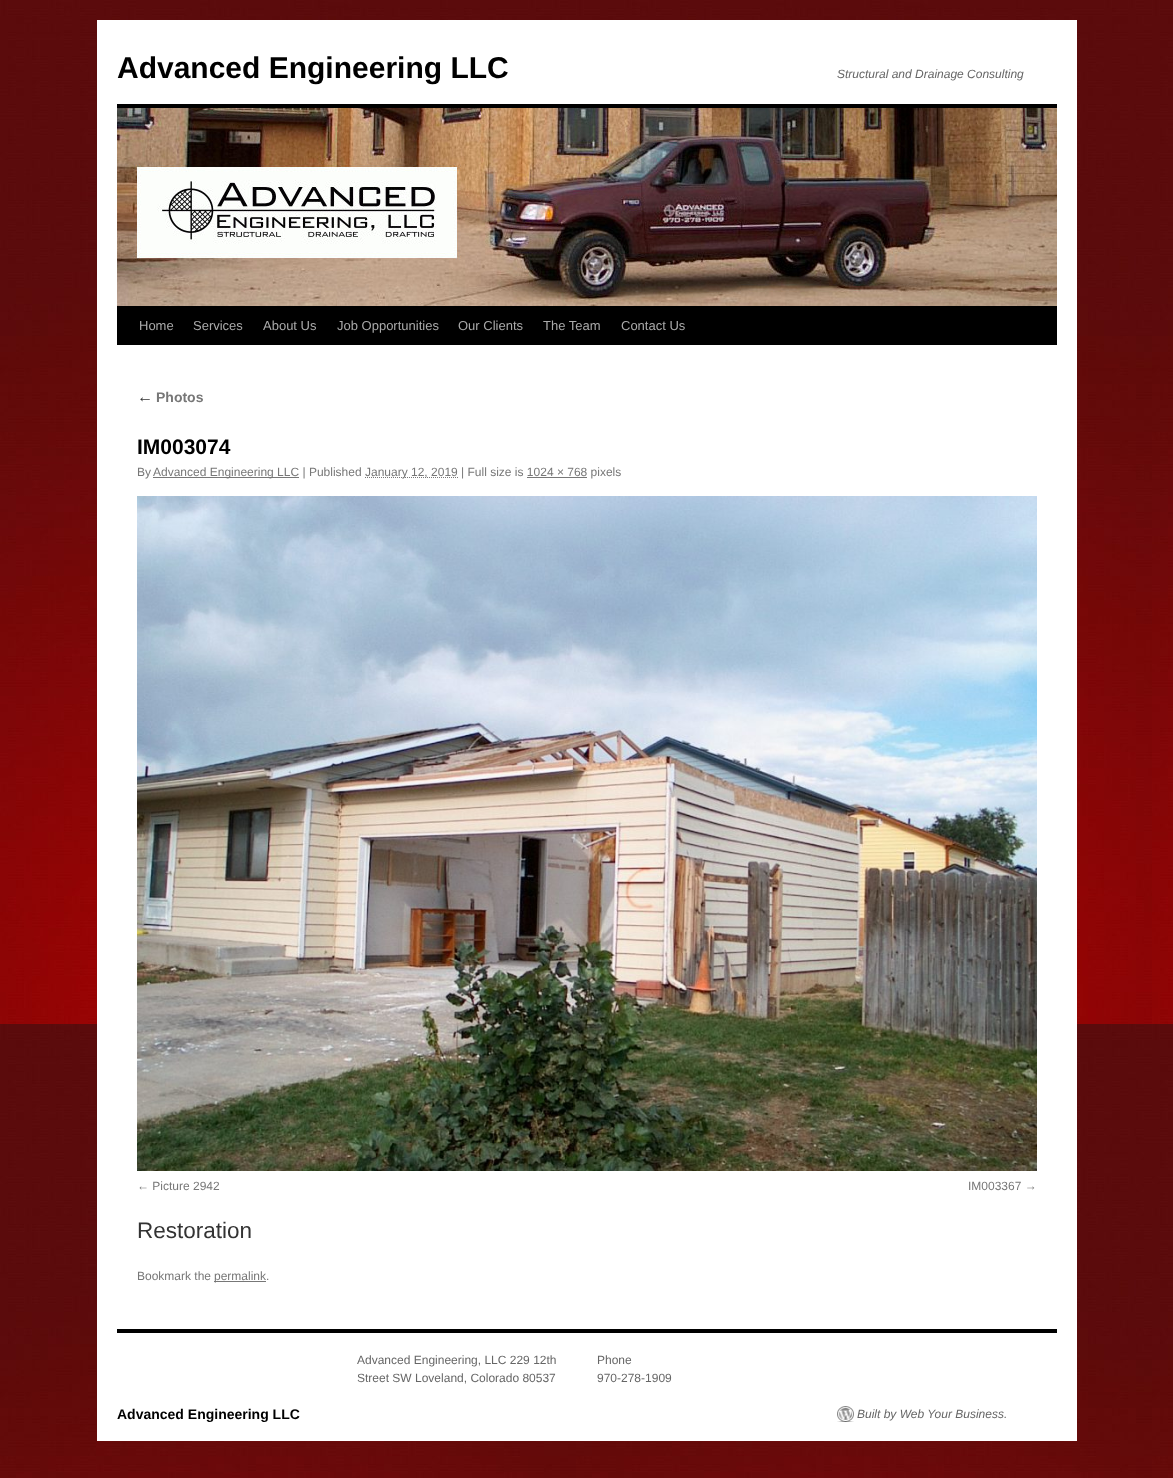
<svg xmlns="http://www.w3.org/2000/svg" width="1173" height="1478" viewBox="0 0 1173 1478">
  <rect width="100%" height="100%" fill="#fff"/>
  <image x="0" y="0" width="1173" height="1478" href="img/1.png"/>
  <path d="M97 20h980v1421H97z" fill="#fff"/>
  <path d="M117 104h940v4H117z" fill="#000"/>
  <path d="M117 306h940v39H117z" fill="#000"/>
  <image x="117" y="108" width="940" height="198" href="img/2.png"/>
  <path d="M153 477h146v1H153z" fill="#777"/>
  <path d="M365 477.5H458" fill="none" stroke="#777" stroke-dasharray="1 1"/>
  <path d="M527 477h60v1H527z" fill="#777"/>
  <image x="137" y="496" width="900" height="675" href="img/3.png"/>
  <path d="M214 1281h52v1H214z" fill="#777"/>
  <path d="M117 1329h940v4H117z" fill="#000"/>
  <image x="837" y="1406" width="17" height="16" href="img/4.png"/>
  <text x="117" y="78" font-family="Liberation Sans" font-size="30" font-weight="bold" fill="#000">Advanced Engineering LLC</text>
  <text x="837" y="78" font-family="Liberation Sans" font-size="12" font-style="italic" fill="#666">Structural and Drainage Consulting</text>
  <g font-family="Liberation Sans" font-size="13" fill="#aaa">
    <text x="139" y="330">Home</text>
    <text x="193" y="330">Services</text>
    <text x="263" y="330">About Us</text>
    <text x="337" y="330">Job Opportunities</text>
    <text x="458" y="330">Our Clients</text>
    <text x="543" y="330">The Team</text>
    <text x="621" y="330">Contact Us</text>
  </g>
  <text x="137" y="402" font-family="Liberation Sans" font-size="16" font-style="italic" fill="#333">←</text>
  <text x="156" y="402" font-family="Liberation Sans" font-size="14" font-weight="bold" fill="#777">Photos</text>
  <text x="137" y="454" font-family="Liberation Sans" font-size="21" font-weight="bold" fill="#000">IM003074</text>
  <g font-family="Liberation Sans" font-size="12" fill="#777">
    <text x="137" y="476">By</text>
    <text x="153" y="476">Advanced Engineering LLC | Published</text>
    <text x="365" y="476">January 12, 2019 | Full size is 1024 × 768 pixels</text>
    <text x="137" y="1190">← Picture 2942</text>
    <text x="968" y="1190">IM003367 →</text>
  </g>
  <text x="137" y="1238" font-family="Liberation Sans" font-size="22.5" fill="#333">Restoration</text>
  <g font-family="Liberation Sans" font-size="12" fill="#777">
    <text x="137" y="1280">Bookmark the</text>
    <text x="214" y="1280">permalink.</text>
  </g>
  <g font-family="Liberation Sans" font-size="12" fill="#666">
    <text x="357" y="1364">Advanced Engineering, LLC 229 12th</text>
    <text x="357" y="1382">Street SW Loveland, Colorado 80537</text>
    <text x="597" y="1364">Phone</text>
    <text x="597" y="1382">970-278-1909</text>
  </g>
  <text x="117" y="1419" font-family="Liberation Sans" font-size="14" font-weight="bold" fill="#000">Advanced Engineering LLC</text>
  <text x="857" y="1418" font-family="Liberation Sans" font-size="12" font-style="italic" fill="#666">Built by Web Your Business.</text>
</svg>
